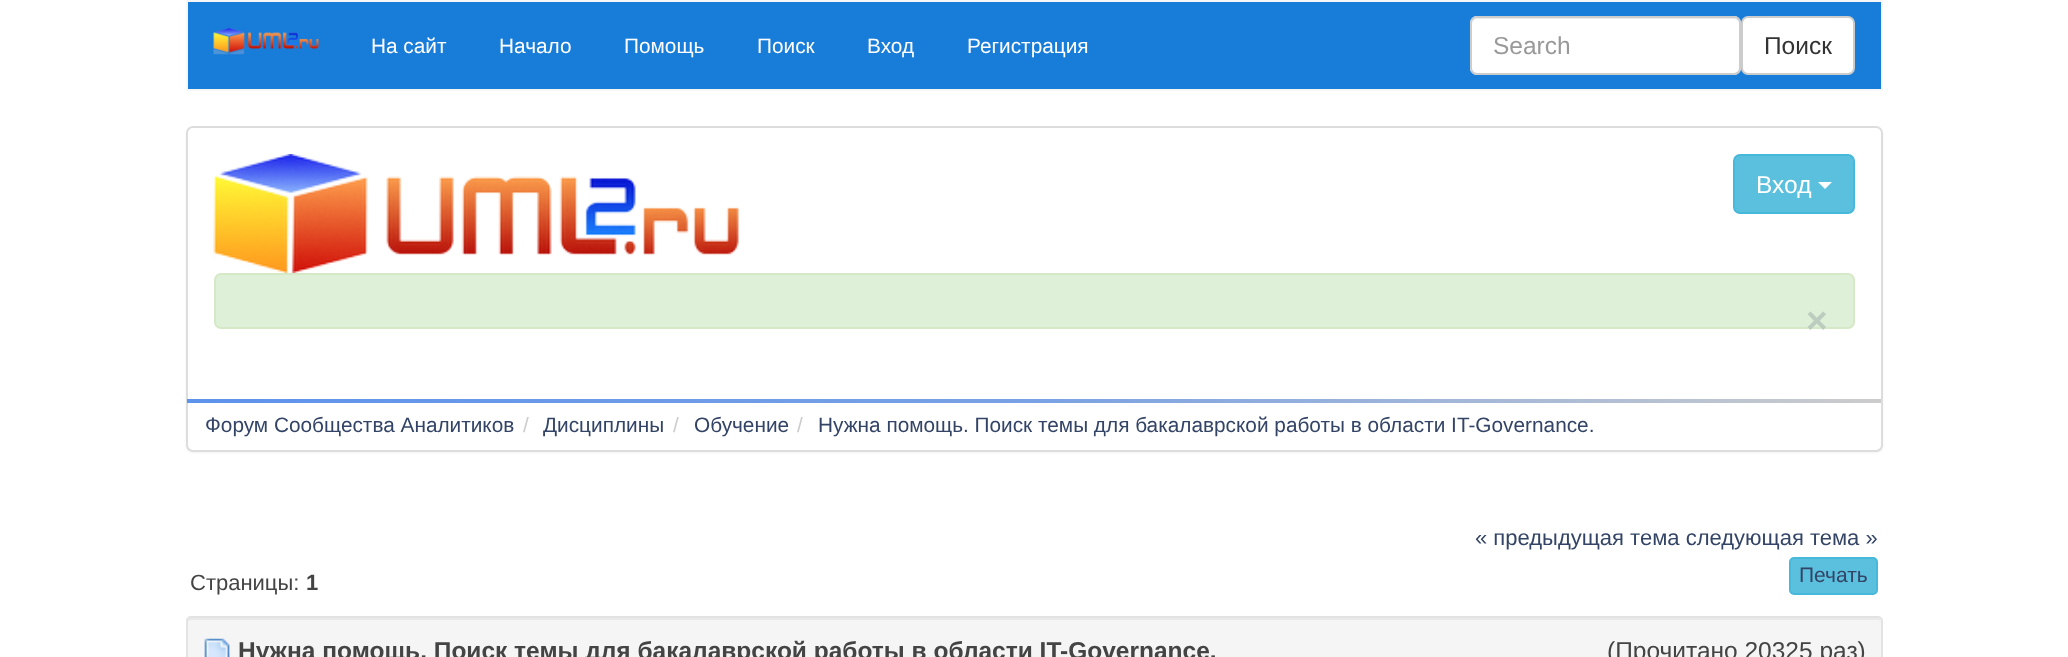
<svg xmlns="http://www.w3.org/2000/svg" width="2068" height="657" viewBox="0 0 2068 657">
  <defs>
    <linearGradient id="g1" gradientUnits="userSpaceOnUse" x1="187" y1="401" x2="1881" y2="401"><stop offset="0" stop-color="#5e93ec"/><stop offset="0.5" stop-color="#79a1e4"/><stop offset="1" stop-color="#ccc"/></linearGradient>
  </defs>
  <rect width="100%" height="100%" fill="#fff"/>
  <path d="M187 1h1695v89H187z" fill="#187cd9" stroke="#f7f7f7" stroke-width="2"/>
  <image x="213" y="28" width="106" height="27" href="img/1.png"/>
  <rect x="1470" y="16" width="271" height="59" rx="7" fill="#fff"/>
  <path d="M1477 19H1734C1737 19 1740 22 1740 24C1740 21 1738 18 1735 18H1477C1474 18 1472 21 1472 24C1472 22 1474 19 1477 19Z" fill="#ececec"/>
  <rect x="1471" y="17" width="269" height="57" rx="6" fill="none" stroke="#ccc" stroke-width="2"/>
  <rect x="1742" y="17" width="112" height="57" rx="6" fill="#fff" stroke="#ccc" stroke-width="2"/>
  <rect x="186" y="128" width="1697" height="325" rx="7" fill="#0000000d" filter="blur(1px)"/>
  <rect x="187" y="127" width="1695" height="324" rx="6" fill="#fff" stroke="#ddd" stroke-width="2"/>
  <image x="213" y="154" width="526" height="119" href="img/2.png"/>
  <rect x="1734" y="155" width="120" height="58" rx="6" fill="#5bc0de" stroke="#46b8da" stroke-width="2"/>
  <path d="M1818 182H1832L1825 189Z" fill="#fff"/>
  <rect x="215" y="274" width="1639" height="54" rx="6" fill="#dff0d8" stroke="#d6e9c6" stroke-width="2"/>
  <path d="M187 399h1694v4H187z" fill="url(#g1)"/>
  <rect x="1790" y="558" width="87" height="36" rx="4" fill="#5bc0de" stroke="#46b8da" stroke-width="2"/>
  <rect x="186" y="616" width="1697" height="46" rx="5" fill="#f5f5f5"/>
  <path d="M191 620H1878C1880 620 1881 621 1881 623C1881 620 1880 618 1877 618H191C189 618 187 619 187 621V623C187 621 189 620 191 620Z" fill="#e9e9e9"/>
  <rect x="187" y="617" width="1695" height="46" rx="4" fill="none" stroke="#e3e3e3" stroke-width="2"/>
  <image x="204" y="638" width="26" height="19" href="img/3.png"/>
  <g font-family="Liberation Sans" font-size="20.8" fill="#fff">
    <text x="371" y="53">На сайт</text>
    <text x="499" y="53">Начало</text>
    <text x="624" y="53">Помощь</text>
    <text x="757" y="53">Поиск</text>
    <text x="867" y="53">Вход</text>
    <text x="967" y="53">Регистрация</text>
  </g>
  <text x="1493" y="54" font-family="Liberation Sans" font-size="24.5" fill="#999">Search</text>
  <text x="1764" y="54" font-family="Liberation Sans" font-size="24.5" fill="#333">Поиск</text>
  <text x="1756" y="193" font-family="Liberation Sans" font-size="24.5" fill="#fff">Вход</text>
  <text x="1806" y="333" font-family="Liberation Sans" font-size="37" font-weight="bold" fill="#bccdc0">×</text>
  <text x="205" y="432" font-family="Liberation Sans" font-size="20.8" fill="#346">Форум Сообщества Аналитиков</text>
  <text x="523" y="432" font-family="Liberation Sans" font-size="20.8" fill="#ccc">/</text>
  <text x="543" y="432" font-family="Liberation Sans" font-size="20.8" fill="#346">Дисциплины</text>
  <text x="673" y="432" font-family="Liberation Sans" font-size="20.8" fill="#ccc">/</text>
  <text x="694" y="432" font-family="Liberation Sans" font-size="20.8" fill="#346">Обучение</text>
  <text x="797" y="432" font-family="Liberation Sans" font-size="20.8" fill="#ccc">/</text>
  <text x="818" y="432" font-family="Liberation Sans" font-size="20.8" fill="#346">Нужна помощь. Поиск темы для бакалаврской работы в области IT-Governance.</text>
  <text x="1475" y="545" font-family="Liberation Sans" font-size="22" fill="#346">« предыдущая тема следующая тема »</text>
  <text x="190" y="590" font-family="Liberation Sans" font-size="22" fill="#444">Страницы:</text>
  <text x="306" y="590" font-family="Liberation Sans" font-size="22" font-weight="bold" fill="#444">1</text>
  <text x="1799" y="582" font-family="Liberation Sans" font-size="21" fill="#346">Печать</text>
  <text x="238" y="659" font-family="Liberation Sans" font-size="24.5" font-weight="bold" fill="#444">Нужна помощь. Поиск темы для бакалаврской работы в области IT-Governance.</text>
  <text x="1607" y="659" font-family="Liberation Sans" font-size="24.5" fill="#444">(Прочитано 20325 раз)</text>
</svg>
